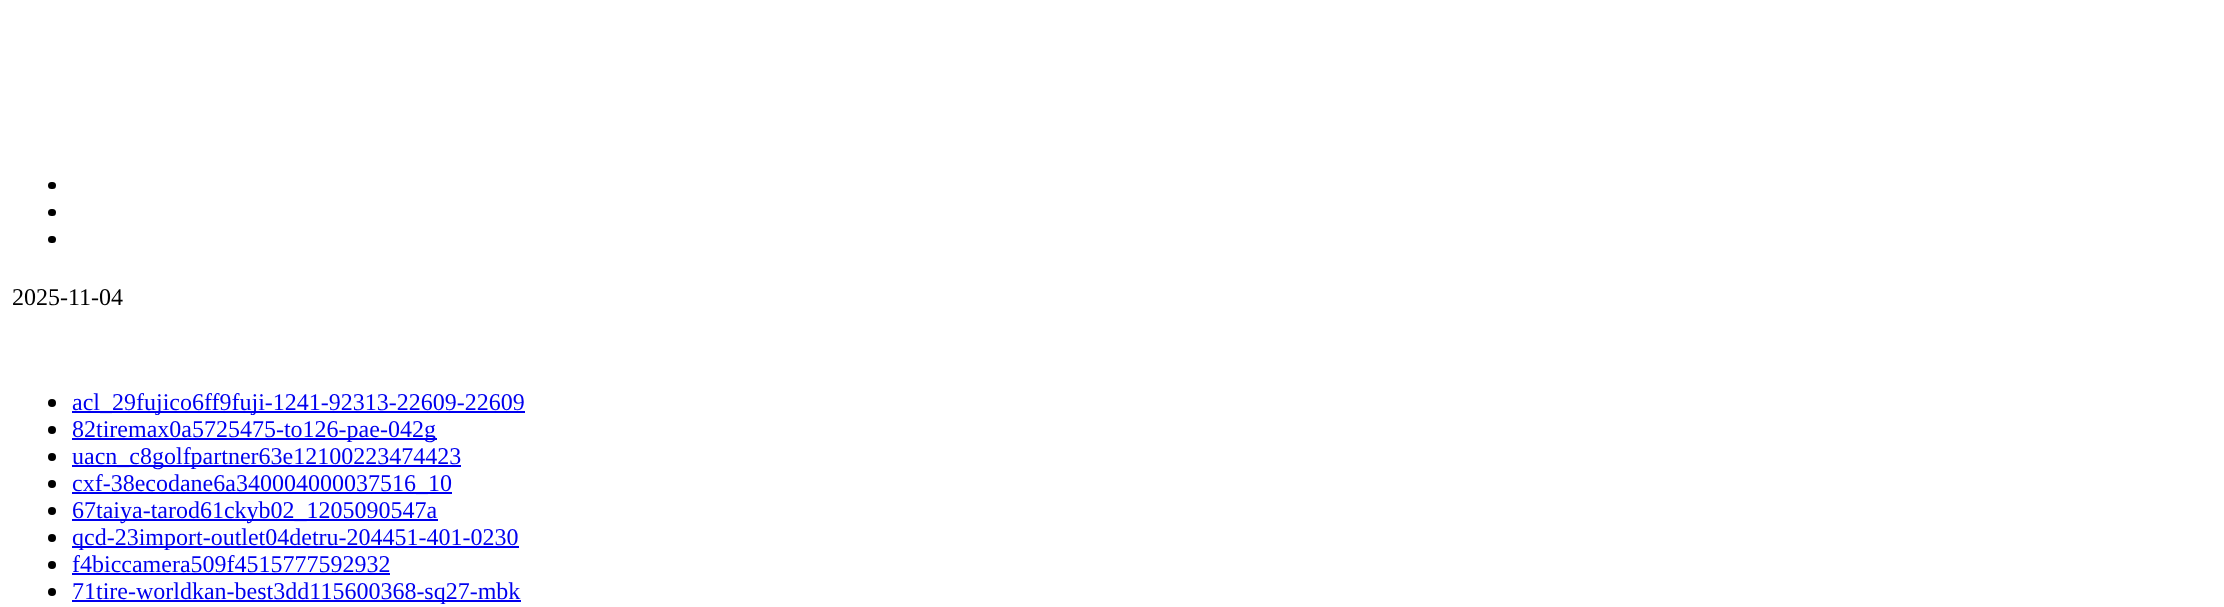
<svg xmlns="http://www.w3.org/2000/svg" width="2224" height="607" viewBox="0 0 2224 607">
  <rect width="100%" height="100%" fill="#fff"/>
  <rect x="48" y="182" width="8" height="7" rx="3.5" fill="#000"/>
  <rect x="48" y="209" width="8" height="7" rx="3.5" fill="#000"/>
  <rect x="48" y="236" width="8" height="7" rx="3.5" fill="#000"/>
  <circle cx="52" cy="403" r="4" fill="#000"/>
  <path d="M72 411h453v2H72z" fill="#00e"/>
  <circle cx="52" cy="430" r="4" fill="#000"/>
  <path d="M72 438h365v2H72z" fill="#00e"/>
  <circle cx="52" cy="457" r="4" fill="#000"/>
  <path d="M72 465h389v2H72z" fill="#00e"/>
  <circle cx="52" cy="484" r="4" fill="#000"/>
  <path d="M72 492h380v2H72z" fill="#00e"/>
  <circle cx="52" cy="511" r="4" fill="#000"/>
  <path d="M72 519h366v2H72z" fill="#00e"/>
  <circle cx="52" cy="538" r="4" fill="#000"/>
  <path d="M72 546h447v2H72z" fill="#00e"/>
  <circle cx="52" cy="565" r="4" fill="#000"/>
  <path d="M72 573h318v2H72z" fill="#00e"/>
  <circle cx="52" cy="592" r="4" fill="#000"/>
  <path d="M72 600h449v2H72z" fill="#00e"/>
  <text x="12" y="305" font-family="Liberation Serif" font-size="24" fill="#000">2025-11-04</text>
  <g font-family="Liberation Serif" font-size="24" fill="#00e">
    <text x="72" y="410">acl_29fujico6ff9fuji-1241-92313-22609-22609</text>
    <text x="72" y="437">82tiremax0a5725475-to126-pae-042g</text>
    <text x="72" y="464">uacn_c8golfpartner63e12100223474423</text>
    <text x="72" y="491">cxf-38ecodane6a340004000037516_10</text>
    <text x="72" y="518">67taiya-tarod61ckyb02_1205090547a</text>
    <text x="72" y="545">qcd-23import-outlet04detru-204451-401-0230</text>
    <text x="72" y="572">f4biccamera509f4515777592932</text>
    <text x="72" y="599">71tire-worldkan-best3dd115600368-sq27-mbk</text>
  </g>
</svg>
